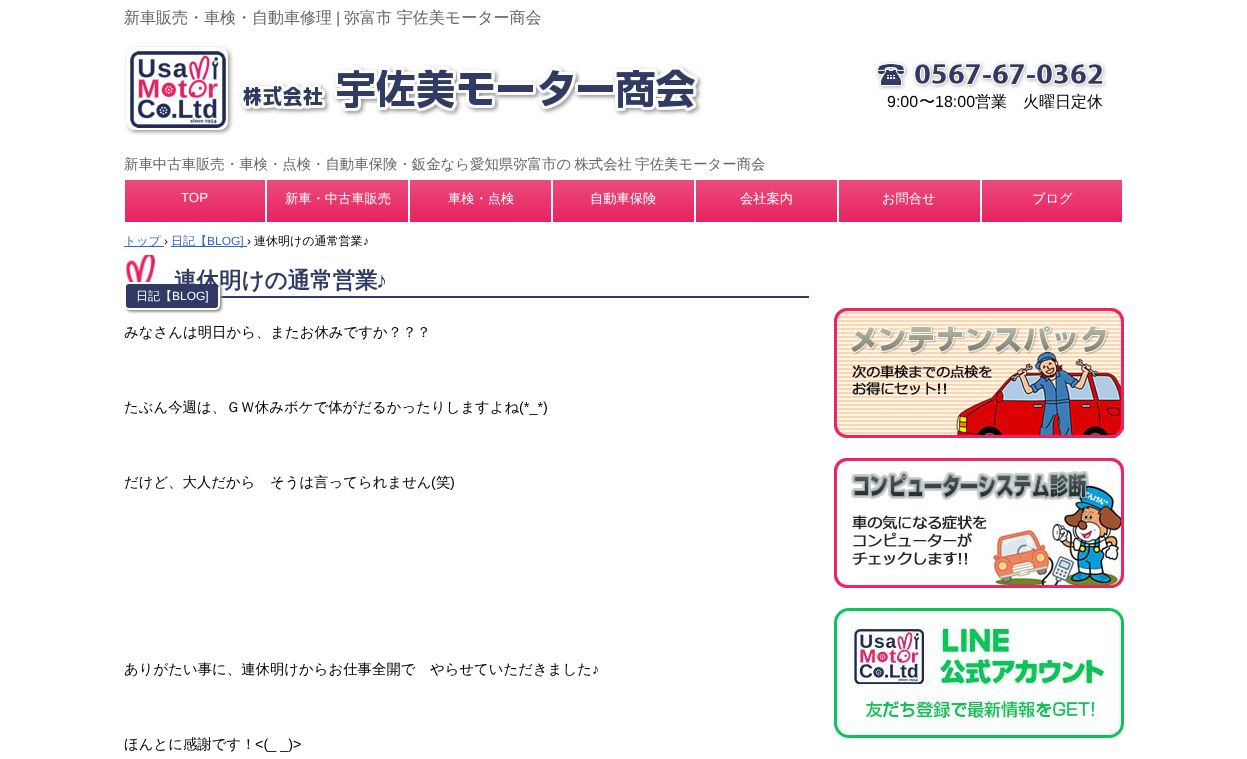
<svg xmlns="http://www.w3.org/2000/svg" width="1247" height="759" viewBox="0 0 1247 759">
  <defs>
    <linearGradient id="g1" gradientUnits="userSpaceOnUse" x1="195" y1="179" x2="195" y2="223"><stop offset="0" stop-color="#ec4c7f"/><stop offset="1" stop-color="#e72160"/></linearGradient>
    <linearGradient id="g2" gradientUnits="userSpaceOnUse" x1="338" y1="179" x2="338" y2="223"><stop offset="0" stop-color="#ec4c7f"/><stop offset="1" stop-color="#e72160"/></linearGradient>
    <linearGradient id="g3" gradientUnits="userSpaceOnUse" x1="481" y1="179" x2="481" y2="223"><stop offset="0" stop-color="#ec4c7f"/><stop offset="1" stop-color="#e72160"/></linearGradient>
    <linearGradient id="g4" gradientUnits="userSpaceOnUse" x1="624" y1="179" x2="624" y2="223"><stop offset="0" stop-color="#ec4c7f"/><stop offset="1" stop-color="#e72160"/></linearGradient>
    <linearGradient id="g5" gradientUnits="userSpaceOnUse" x1="767" y1="179" x2="767" y2="223"><stop offset="0" stop-color="#ec4c7f"/><stop offset="1" stop-color="#e72160"/></linearGradient>
    <linearGradient id="g6" gradientUnits="userSpaceOnUse" x1="910" y1="179" x2="910" y2="223"><stop offset="0" stop-color="#ec4c7f"/><stop offset="1" stop-color="#e72160"/></linearGradient>
    <linearGradient id="g7" gradientUnits="userSpaceOnUse" x1="1052" y1="179" x2="1052" y2="223"><stop offset="0" stop-color="#ec4c7f"/><stop offset="1" stop-color="#e72160"/></linearGradient>
  </defs>
  <rect width="100%" height="100%" fill="#fff"/>
  <image x="124" y="45" width="579" height="90" href="img/1.png"/>
  <image x="875" y="59" width="232" height="32" href="img/2.png"/>
  <path d="M125 180h140v42H125z" fill="url(#g1)"/>
  <path d="M267 180h141v42H267z" fill="url(#g2)"/>
  <path d="M410 180h141v42H410z" fill="url(#g3)"/>
  <path d="M553 180h141v42H553z" fill="url(#g4)"/>
  <path d="M696 180h141v42H696z" fill="url(#g5)"/>
  <path d="M839 180h141v42H839z" fill="url(#g6)"/>
  <path d="M982 180h140v42H982z" fill="url(#g7)"/>
  <path d="M124 246h36v1H124z" fill="#36c"/>
  <path d="M160 246h4v1H160z" fill="#36c"/>
  <path d="M171 246h76v1H171z" fill="#36c"/>
  <image x="124" y="255" width="31" height="53" href="img/3.png"/>
  <path d="M220 296h589v2H220z" fill="#303a64"/>
  <rect x="126" y="284" width="96" height="28" rx="5" fill="#999" filter="blur(1px)"/>
  <rect x="125" y="283" width="94" height="26" rx="4" fill="#303a64" stroke="#fff" stroke-width="2"/>
  <image x="834" y="308" width="290" height="130" href="img/4.png"/>
  <image x="834" y="458" width="290" height="130" href="img/5.png"/>
  <image x="834" y="608" width="290" height="130" href="img/6.png"/>
  <text x="124" y="23" font-family="WenQuanYi Zen Hei" font-size="16" font-weight="500" fill="#666">新車販売・車検・自動車修理</text>
  <text x="336" y="23" font-family="Liberation Sans" font-size="16" fill="#666">|</text>
  <text x="344" y="23" font-family="WenQuanYi Zen Hei" font-size="16" font-weight="500" fill="#666">弥富市 宇佐美モーター商会</text>
  <text x="887" y="107" font-family="Liberation Sans" font-size="16" fill="#000">9:00</text>
  <text x="919" y="107" font-family="WenQuanYi Zen Hei" font-size="16" font-weight="500" fill="#000">〜</text>
  <text x="935" y="107" font-family="Liberation Sans" font-size="16" fill="#000">18:00</text>
  <text x="975" y="107" font-family="WenQuanYi Zen Hei" font-size="16" font-weight="500" fill="#000">営業　火曜日定休</text>
  <text x="124" y="169" word-spacing="-1" font-family="WenQuanYi Zen Hei" font-size="14.4" font-weight="500" fill="#666">新車中古車販売・車検・点検・自動車保険・鈑金なら愛知県弥富市の 株式会社 宇佐美モーター商会</text>
  <text x="181" y="202" font-family="Liberation Sans" font-size="13.25" fill="#fff">TOP</text>
  <g font-family="WenQuanYi Zen Hei" font-size="13.25" font-weight="500" fill="#fff">
    <text x="285" y="203">新車・中古車販売</text>
    <text x="448" y="203">車検・点検</text>
    <text x="590" y="203">自動車保険</text>
    <text x="740" y="203">会社案内</text>
    <text x="882" y="203">お問合せ</text>
    <text x="1032" y="203">ブログ</text>
  </g>
  <text x="124" y="245" font-family="WenQuanYi Zen Hei" font-size="12" font-weight="500" fill="#36c">トップ</text>
  <text x="164" y="245" font-family="Liberation Sans" font-size="12" fill="#000">›</text>
  <text x="171" y="245" font-family="WenQuanYi Zen Hei" font-size="12" font-weight="500" fill="#36c">日記【</text>
  <text x="207" y="245" font-family="Liberation Sans" font-size="12" fill="#36c">BLOG]</text>
  <text x="247" y="245" font-family="Liberation Sans" font-size="12" fill="#000">›</text>
  <text x="254" y="245" font-family="WenQuanYi Zen Hei" font-size="12" font-weight="500" fill="#000">連休明けの通常営業</text>
  <text x="363" y="245" font-family="Liberation Sans" font-size="12" fill="#000">♪</text>
  <text x="174" y="288" font-family="WenQuanYi Zen Hei" font-size="22.5" font-weight="bold" fill="#303a64">連休明けの通常営業</text>
  <text x="376" y="288" font-family="Liberation Sans" font-size="22.5" font-weight="bold" fill="#303a64">♪</text>
  <text x="136" y="300" font-family="WenQuanYi Zen Hei" font-size="12" font-weight="500" fill="#fff">日記【</text>
  <text x="172" y="300" font-family="Liberation Sans" font-size="12" fill="#fff">BLOG]</text>
  <g font-family="WenQuanYi Zen Hei" font-size="14.4" font-weight="500" fill="#000">
    <text x="124" y="337">みなさんは明日から、またお休みですか？？？</text>
    <text x="124" y="412">たぶん今週は、ＧＷ休みボケで体がだるかったりしますよね</text>
  </g>
  <text x="519" y="412" font-family="Liberation Sans" font-size="14.4" fill="#000">(*_*)</text>
  <text x="124" y="487" font-family="WenQuanYi Zen Hei" font-size="14.4" font-weight="500" fill="#000">だけど、大人だから　そうは言ってられません</text>
  <text x="431" y="487" font-family="Liberation Sans" font-size="14.4" fill="#000">(</text>
  <text x="436" y="487" font-family="WenQuanYi Zen Hei" font-size="14.4" font-weight="500" fill="#000">笑</text>
  <text x="450" y="487" font-family="Liberation Sans" font-size="14.4" fill="#000">)</text>
  <text x="124" y="674" font-family="WenQuanYi Zen Hei" font-size="14.4" font-weight="500" fill="#000">ありがたい事に、連休明けからお仕事全開で　やらせていただきました</text>
  <text x="592" y="674" font-family="Liberation Sans" font-size="14.4" fill="#000">♪</text>
  <text x="124" y="749" font-family="WenQuanYi Zen Hei" font-size="14.4" font-weight="500" fill="#000">ほんとに感謝です！</text>
  <text x="255" y="749" font-family="Liberation Sans" font-size="14.4" fill="#000">&lt;(_ _)&gt;</text>
</svg>
